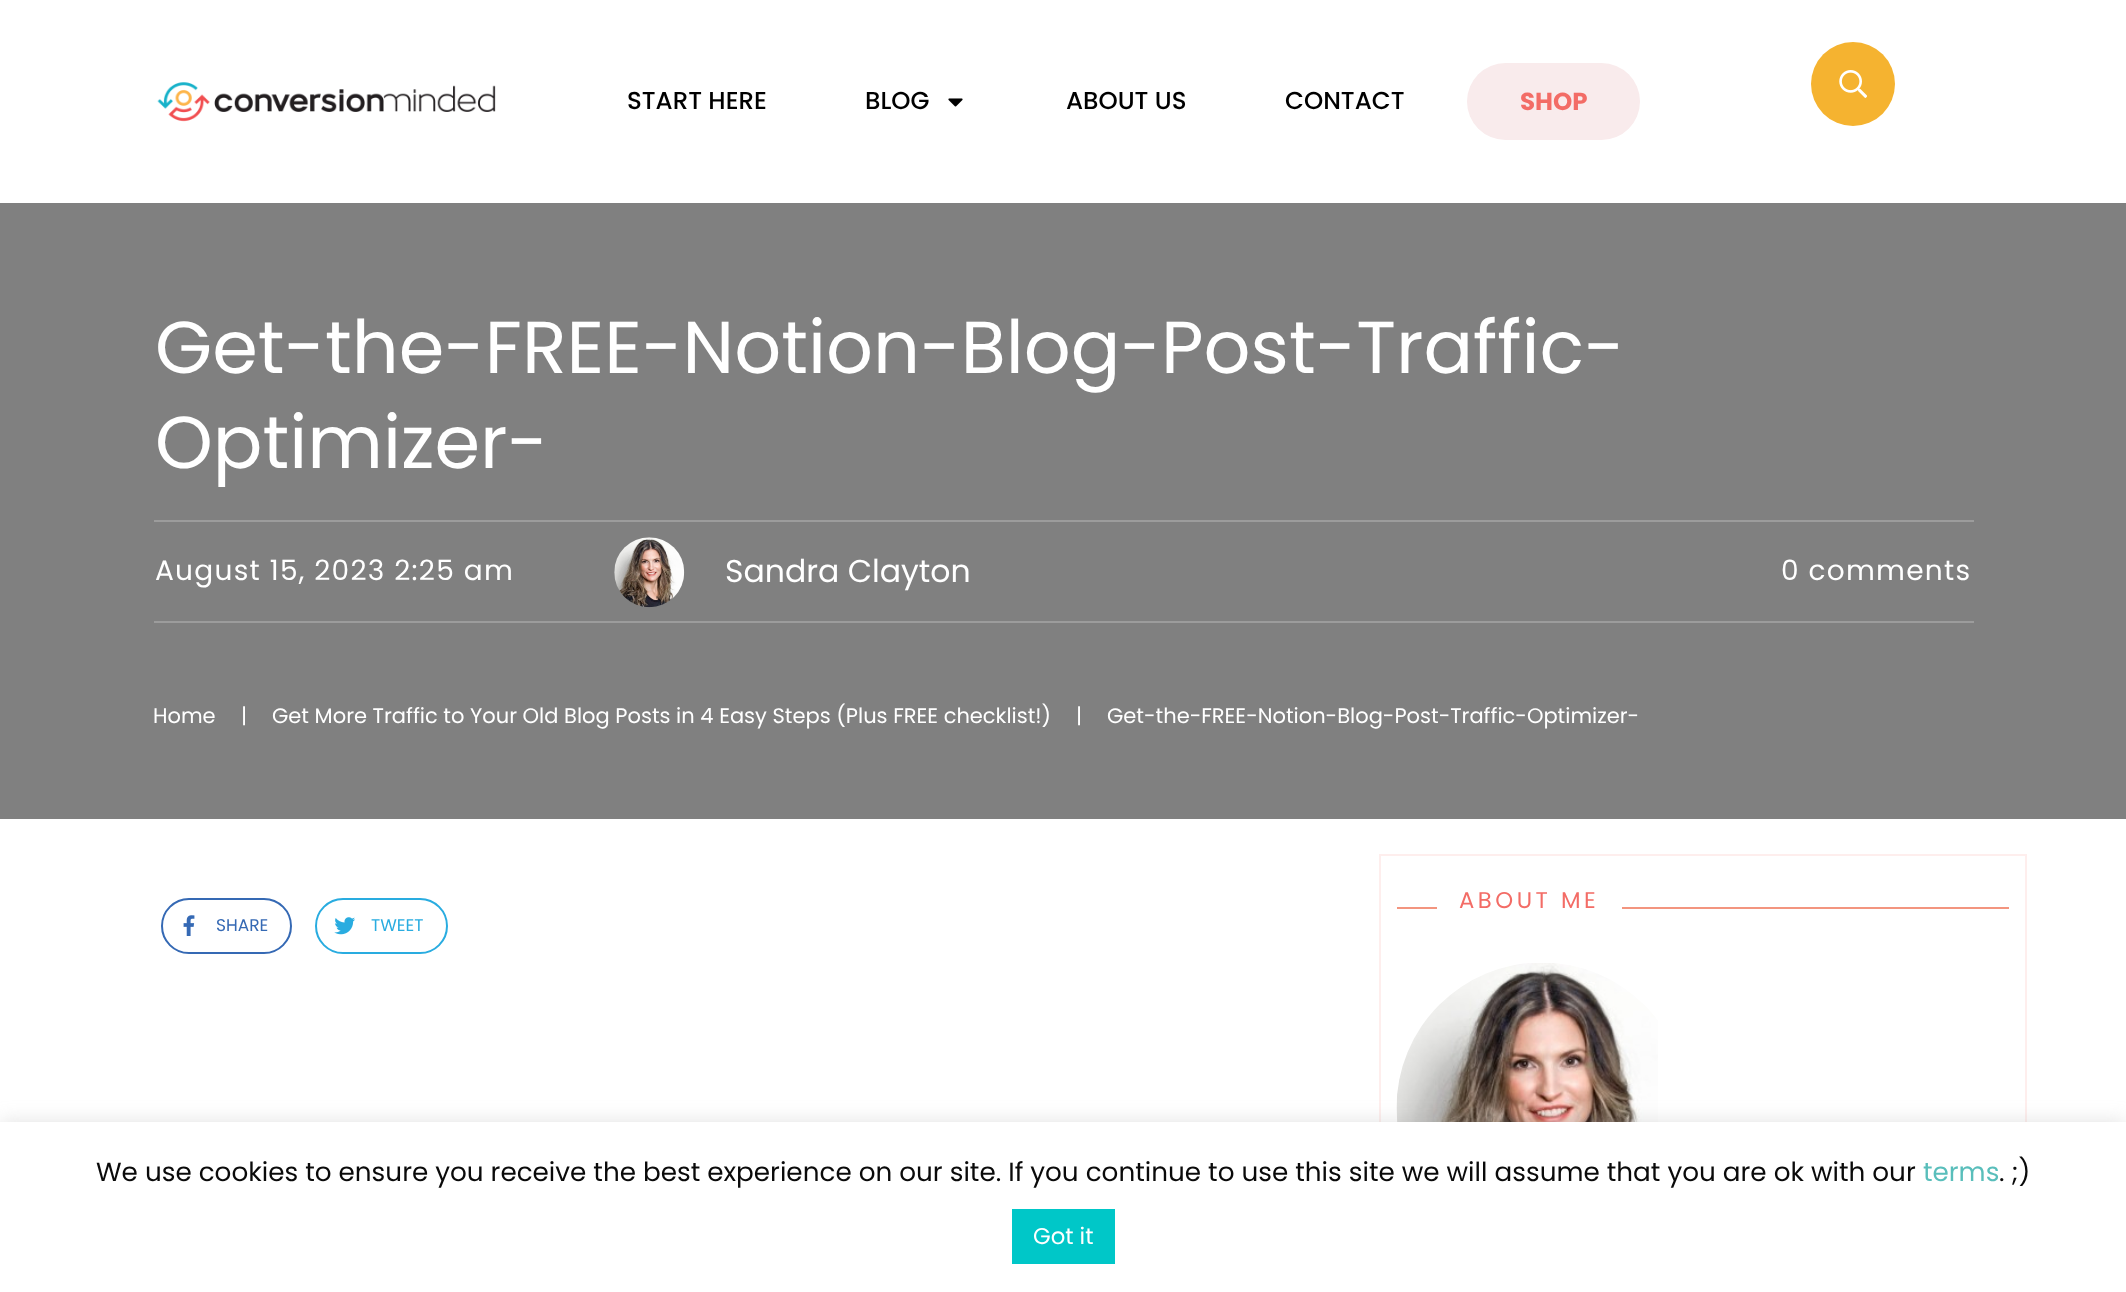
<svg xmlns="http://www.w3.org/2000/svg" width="2126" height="1292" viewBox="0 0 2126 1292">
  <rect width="100%" height="100%" fill="#fff"/>
  <image x="157" y="82" width="339" height="40" href="img/1.png"/>
  <image x="948" y="98" width="15" height="9" href="img/2.png"/>
  <rect x="1467" y="63" width="173" height="77" rx="38.5" fill="#f9ebec"/>
  <circle cx="1853" cy="84" r="42" fill="#f5b330"/>
  <image x="1839" y="70" width="28" height="28" href="img/3.png"/>
  <path d="M0 203h2126v616H0z" fill="#808080"/>
  <path d="M154 520h1820v2H154z" fill="#9c9c9c"/>
  <path d="M154 621h1820v2H154z" fill="#9c9c9c"/>
  <image x="614" y="537" width="71" height="71" href="img/4.png"/>
  <path d="M1380 855h646v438H1380z" fill="none" stroke="#feeeed" stroke-width="2"/>
  <path d="M1397 907h612v2H1397z" fill="#f3957f"/>
  <path d="M1437 907h185v2H1437z" fill="#fff"/>
  <image x="1396" y="963" width="262" height="159" href="img/5.png"/>
  <rect x="162" y="899" width="129" height="54" rx="27" fill="none" stroke="#3569b4" stroke-width="2"/>
  <image x="183" y="915" width="12" height="21" href="img/6.png"/>
  <rect x="316" y="899" width="131" height="54" rx="27" fill="none" stroke="#29ace0" stroke-width="2"/>
  <image x="334" y="917" width="21" height="18" href="img/7.png"/>
  <path d="M0 1120h2126v172H0z" fill="#acabab4d" filter="blur(9px)"/>
  <path d="M0 1122h2126v170H0z" fill="#fff"/>
  <path d="M1012 1209h103v55H1012z" fill="#00c7c8"/>
  <g font-family="Poppins" font-size="24.5" font-weight="500" fill="#000">
    <text x="627" y="109">START HERE</text>
    <text x="865" y="109">BLOG</text>
    <text x="1066" y="109">ABOUT US</text>
    <text x="1285" y="109">CONTACT</text>
  </g>
  <text x="1520" y="110" font-family="Poppins" font-size="24.5" font-weight="bold" fill="#f36c66">SHOP</text>
  <g font-family="Poppins" font-size="73.5" fill="#fff">
    <text x="155" y="373">Get-the-FREE-Notion-Blog-Post-Traffic-</text>
    <text x="155" y="468">Optimizer-</text>
  </g>
  <text x="155" y="580" font-family="Poppins" font-size="28" letter-spacing="1.25" fill="#fff">August 15, 2023 2:25 am</text>
  <text x="725" y="582" font-family="Poppins" font-size="31.5" fill="#fff">Sandra Clayton</text>
  <text x="1781" y="580" font-family="Poppins" font-size="28" letter-spacing="1.25" fill="#fff">0 comments</text>
  <g font-family="Poppins" font-size="21" fill="#fff">
    <text x="153" y="723">Home</text>
    <text x="241" y="723">|</text>
    <text x="272" y="723">Get More Traffic to Your Old Blog Posts in 4 Easy Steps (Plus FREE checklist!)</text>
    <text x="1076" y="723">|</text>
    <text x="1107" y="723">Get-the-FREE-Notion-Blog-Post-Traffic-Optimizer-</text>
  </g>
  <text x="1459" y="908" font-family="Poppins" font-size="22.75" letter-spacing="3.5" fill="#f36c66">ABOUT ME</text>
  <text x="216" y="931" font-family="Poppins" font-size="17" fill="#3569b4">SHARE</text>
  <text x="371" y="931" font-family="Poppins" font-size="17" fill="#29ace0">TWEET</text>
  <text x="96" y="1181" font-family="Poppins" font-size="26.25" fill="#0a0a0a">We use cookies to ensure you receive the best experience on our site. If you continue to use this site we will assume that you are ok with our</text>
  <text x="1923" y="1181" font-family="Poppins" font-size="26.25" fill="#59bebb">terms</text>
  <text x="1999" y="1181" font-family="Poppins" font-size="26.25" fill="#0a0a0a">. ;)</text>
  <text x="1033" y="1244" font-family="Poppins" font-size="22.75" fill="#fff">Got it</text>
</svg>
